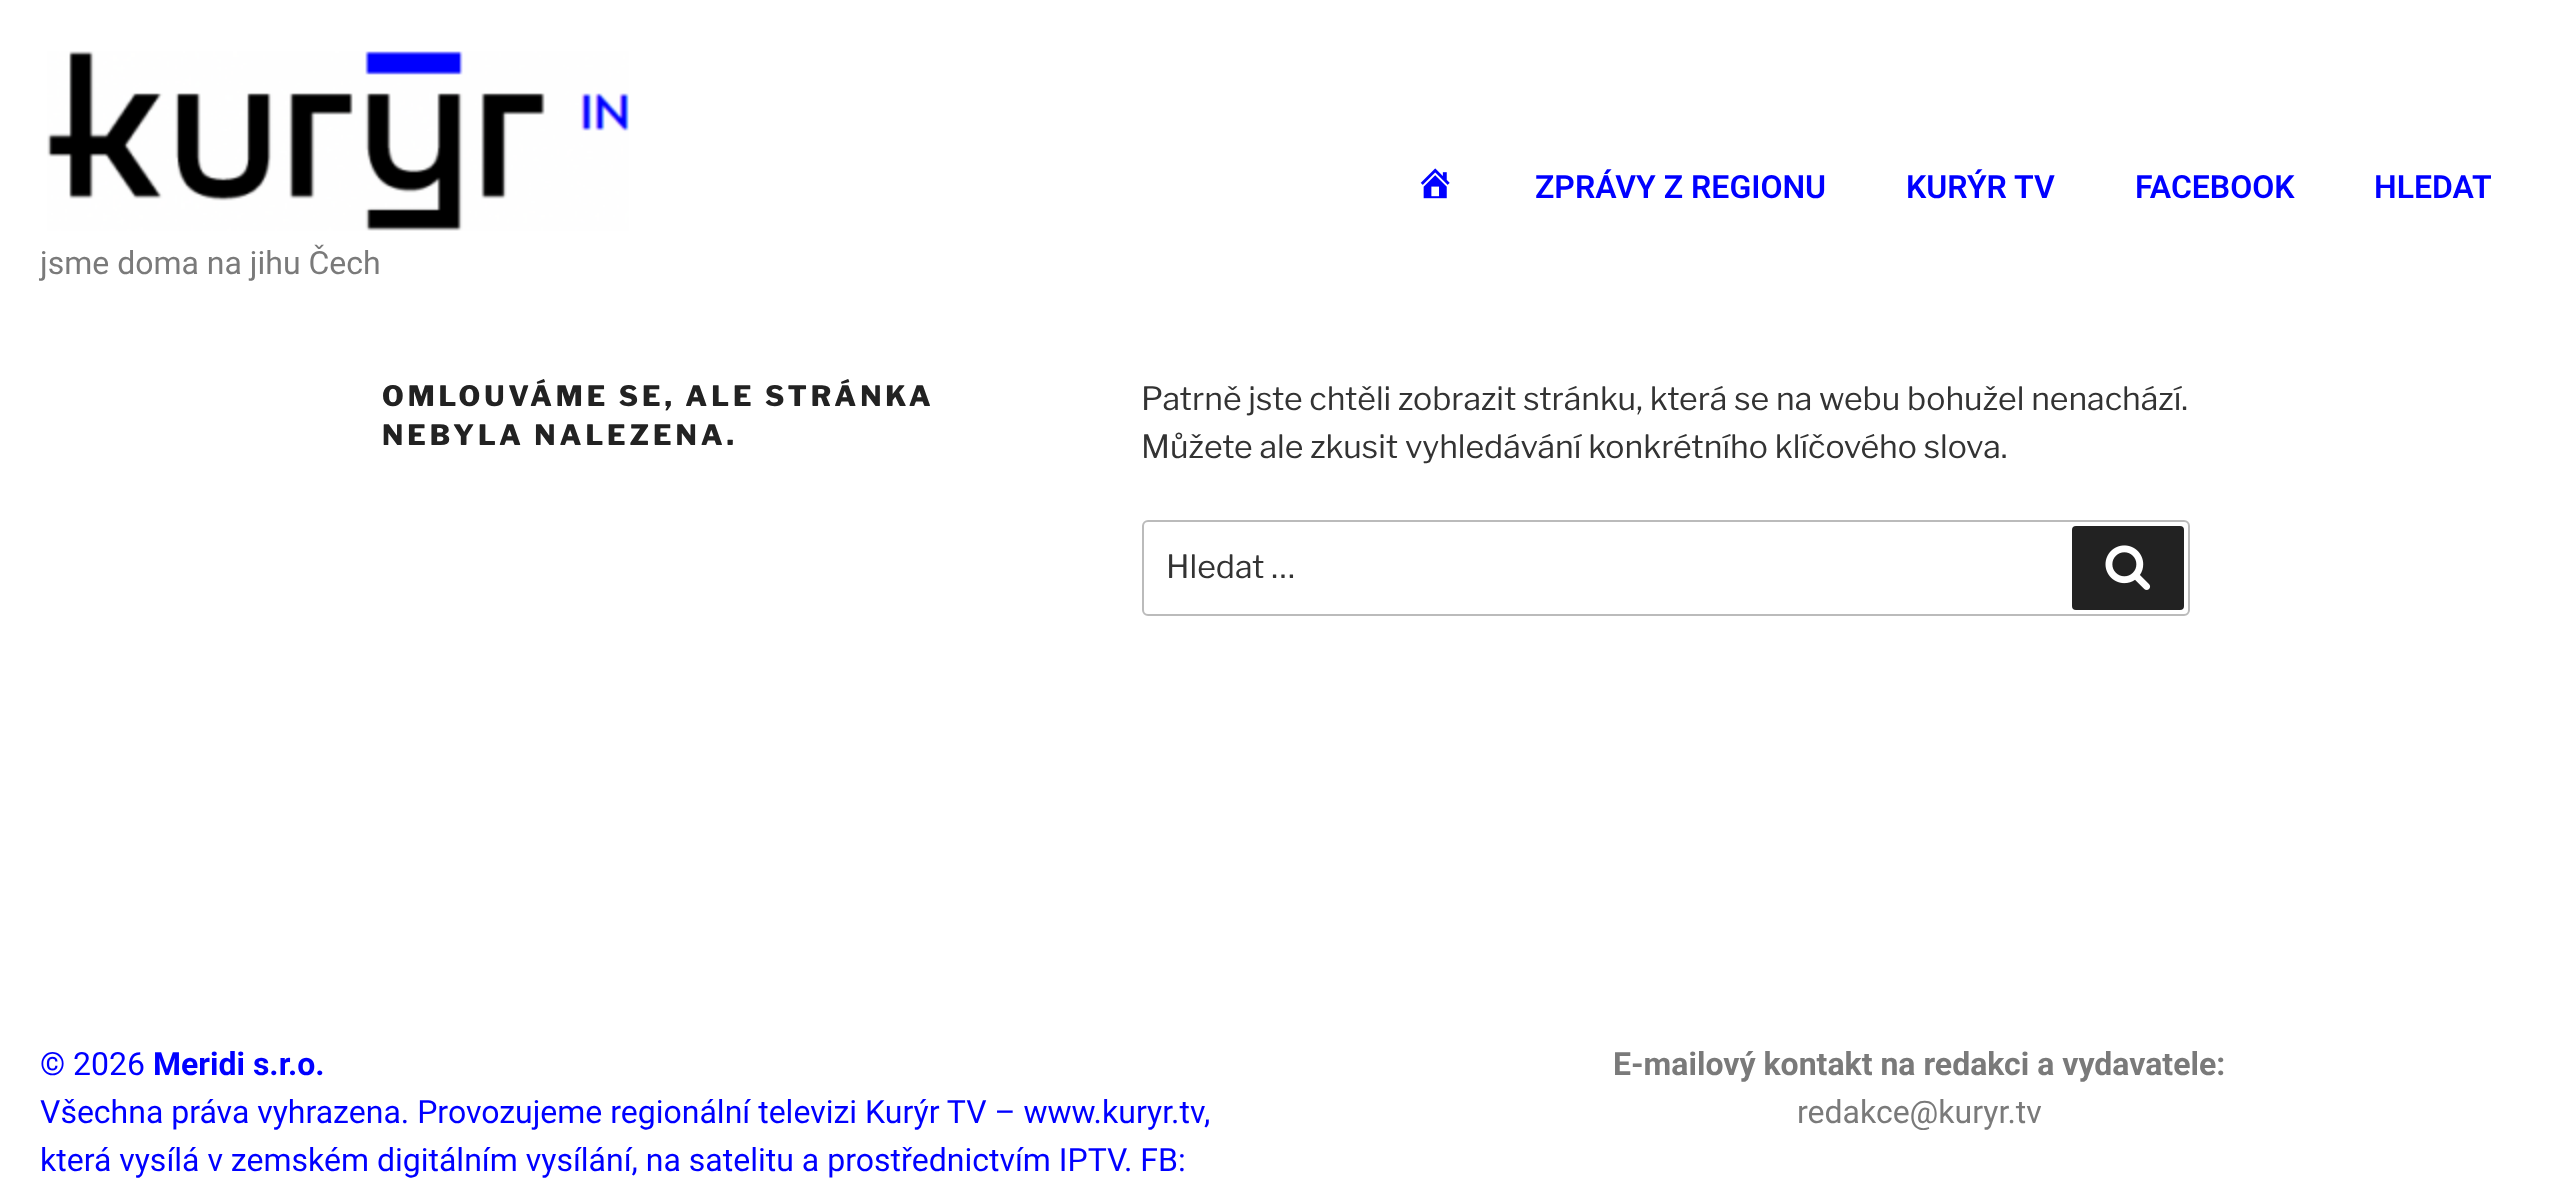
<svg xmlns="http://www.w3.org/2000/svg" width="2572" height="1201" viewBox="0 0 2572 1201">
  <rect width="100%" height="100%" fill="#fff"/>
  <image x="1420" y="168" width="30" height="31" href="img/1.png"/>
  <image x="47" y="51" width="582" height="180" href="img/2.png"/>
  <rect x="1143" y="521" width="1046" height="94" rx="5" fill="none" stroke="#bbb" stroke-width="2"/>
  <rect x="2072" y="526" width="112" height="84" rx="4" fill="#222"/>
  <image x="2105" y="545" width="46" height="45" href="img/3.png"/>
  <g font-family="Roboto" font-size="32" font-weight="600" fill="#00f">
    <text x="1535" y="198">ZPRÁVY Z REGIONU</text>
    <text x="1906" y="198">KURÝR TV</text>
    <text x="2135" y="198">FACEBOOK</text>
    <text x="2374" y="198">HLEDAT</text>
  </g>
  <text x="40" y="274" font-family="Roboto" font-size="32" fill="#7a7a7a">jsme doma na jihu Čech</text>
  <g font-family="Libre Franklin" font-size="28" font-weight="800" letter-spacing="3.9" fill="#222">
    <text x="382" y="406">OMLOUVÁME SE, ALE STRÁNKA</text>
    <text x="382" y="445">NEBYLA NALEZENA.</text>
  </g>
  <g font-family="Libre Franklin" font-size="32" fill="#333">
    <text x="1141" y="410">Patrně jste chtěli zobrazit stránku, která se na webu bohužel nenachází.</text>
    <text x="1141" y="458">Můžete ale zkusit vyhledávání konkrétního klíčového slova.</text>
    <text x="1166" y="578">Hledat …</text>
  </g>
  <text x="40" y="1075" font-family="Roboto" font-size="32" fill="#00f">© 2026</text>
  <text x="153" y="1075" font-family="Roboto" font-size="32" font-weight="bold" fill="#00f">Meridi s.r.o.</text>
  <g font-family="Roboto" font-size="32" fill="#00f">
    <text x="40" y="1123">Všechna práva vyhrazena. Provozujeme regionální televizi Kurýr TV – www.kuryr.tv</text>
    <text x="1204" y="1123">,</text>
    <text x="40" y="1171">která vysílá v zemském digitálním vysílání, na satelitu a prostřednictvím IPTV. FB:</text>
  </g>
  <text x="1613" y="1075" font-family="Roboto" font-size="32" font-weight="bold" fill="#7a7a7a">E-mailový kontakt na redakci a vydavatele:</text>
  <text x="1797" y="1123" font-family="Roboto" font-size="32" fill="#7a7a7a">redakce@kuryr.tv</text>
</svg>
